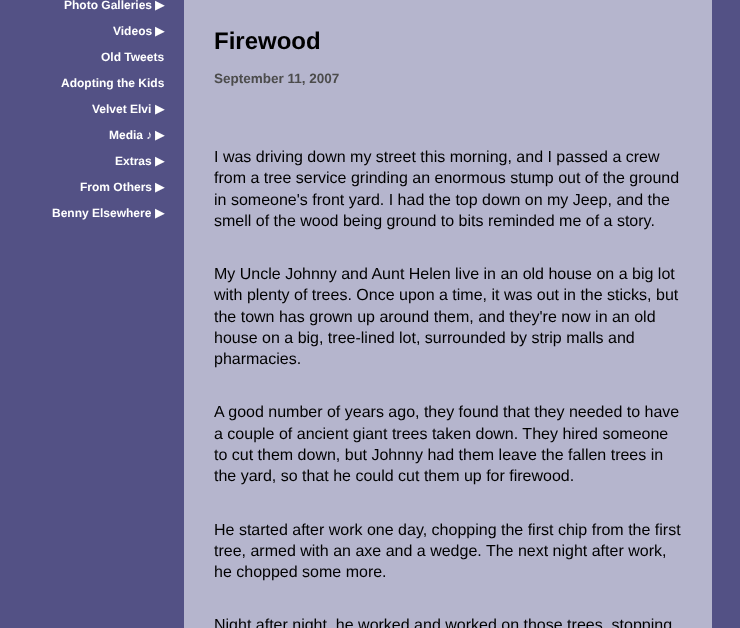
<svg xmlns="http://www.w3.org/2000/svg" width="740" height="628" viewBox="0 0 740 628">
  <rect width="100%" height="100%" fill="#535185"/>
  <path d="M184 0h528v628H184z" fill="#b5b5cd"/>
  <text x="64" y="9" font-family="Liberation Sans" font-size="12" font-weight="bold" fill="#fff">Photo Galleries</text>
  <text x="155" y="9" font-family="DejaVu Sans" font-size="12" font-weight="bold" fill="#fff">▶︎</text>
  <text x="113" y="35" font-family="Liberation Sans" font-size="12" font-weight="bold" fill="#fff">Videos</text>
  <text x="155" y="35" font-family="DejaVu Sans" font-size="12" font-weight="bold" fill="#fff">▶︎</text>
  <g font-family="Liberation Sans" font-size="12" font-weight="bold" fill="#fff">
    <text x="101" y="61">Old Tweets</text>
    <text x="61" y="87">Adopting the Kids</text>
    <text x="92" y="113">Velvet Elvi</text>
  </g>
  <text x="155" y="113" font-family="DejaVu Sans" font-size="12" font-weight="bold" fill="#fff">▶︎</text>
  <text x="109" y="139" font-family="Liberation Sans" font-size="12" font-weight="bold" fill="#fff">Media ♪</text>
  <text x="155" y="139" font-family="DejaVu Sans" font-size="12" font-weight="bold" fill="#fff">▶︎</text>
  <text x="115" y="165" font-family="Liberation Sans" font-size="12" font-weight="bold" fill="#fff">Extras</text>
  <text x="155" y="165" font-family="DejaVu Sans" font-size="12" font-weight="bold" fill="#fff">▶︎</text>
  <text x="80" y="191" font-family="Liberation Sans" font-size="12" font-weight="bold" fill="#fff">From Others</text>
  <text x="155" y="191" font-family="DejaVu Sans" font-size="12" font-weight="bold" fill="#fff">▶︎</text>
  <text x="52" y="217" font-family="Liberation Sans" font-size="12" font-weight="bold" fill="#fff">Benny Elsewhere</text>
  <text x="155" y="217" font-family="DejaVu Sans" font-size="12" font-weight="bold" fill="#fff">▶︎</text>
  <text x="214" y="49" font-family="Liberation Sans" font-size="24" font-weight="bold" fill="#000">Firewood</text>
  <text x="214" y="83" font-family="Liberation Sans" font-size="13.5" font-weight="bold" fill="#4c4c4c">September 11, 2007</text>
  <g font-family="Liberation Sans" font-size="16" fill="#000">
    <text x="214" y="162">I was driving down my street this morning, and I passed a crew</text>
    <text x="214" y="183">from a tree service grinding an enormous stump out of the ground</text>
    <text x="214" y="205">in someone's front yard. I had the top down on my Jeep, and the</text>
    <text x="214" y="226">smell of the wood being ground to bits reminded me of a story.</text>
    <text x="214" y="279">My Uncle Johnny and Aunt Helen live in an old house on a big lot</text>
    <text x="214" y="300">with plenty of trees. Once upon a time, it was out in the sticks, but</text>
    <text x="214" y="322">the town has grown up around them, and they're now in an old</text>
    <text x="214" y="343">house on a big, tree-lined lot, surrounded by strip malls and</text>
    <text x="214" y="364">pharmacies.</text>
    <text x="214" y="417">A good number of years ago, they found that they needed to have</text>
    <text x="214" y="439">a couple of ancient giant trees taken down. They hired someone</text>
    <text x="214" y="460">to cut them down, but Johnny had them leave the fallen trees in</text>
    <text x="214" y="481">the yard, so that he could cut them up for firewood.</text>
    <text x="214" y="535">He started after work one day, chopping the first chip from the first</text>
    <text x="214" y="556">tree, armed with an axe and a wedge. The next night after work,</text>
    <text x="214" y="577">he chopped some more.</text>
    <text x="214" y="630">Night after night, he worked and worked on those trees, stopping</text>
  </g>
</svg>
